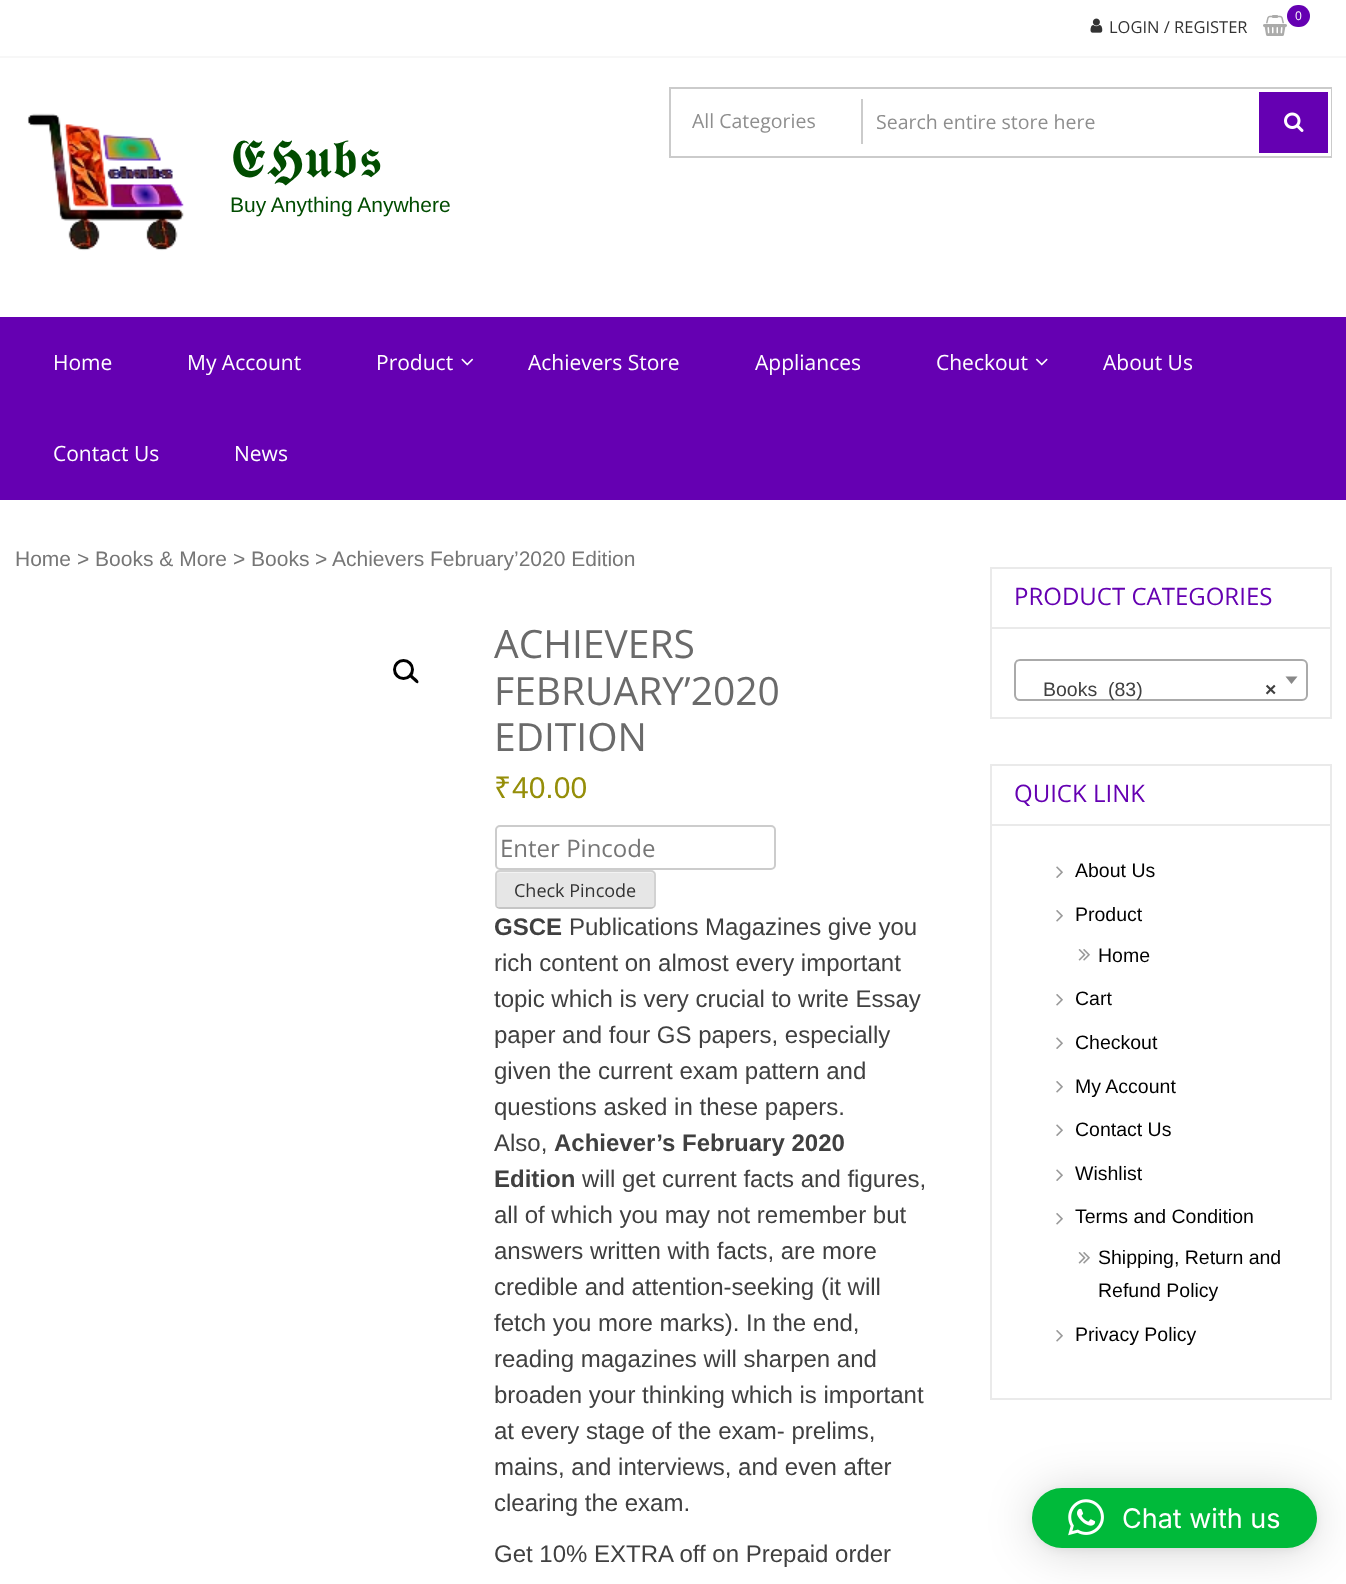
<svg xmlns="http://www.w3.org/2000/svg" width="1346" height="1584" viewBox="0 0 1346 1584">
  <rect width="100%" height="100%" fill="#fff"/>
  <path d="M0 56h1346v2H0z" fill="#f7f7f7"/>
  <image x="1263" y="15" width="24" height="21" href="img/1.png"/>
  <rect x="1287" y="5" width="23" height="22" rx="11" fill="#6500b2"/>
  <image x="1090" y="18" width="13" height="15" href="img/2.png"/>
  <path d="M670 88h661v69H670z" fill="none" stroke="#cbcbcb" stroke-width="2"/>
  <path d="M861 99h2v45H861z" fill="#cbcbcb"/>
  <path d="M1330 89h1v67H1330z" fill="#fff"/>
  <path d="M1259 92h69v61H1259z" fill="#6500b2"/>
  <image x="1284" y="112" width="20" height="20" href="img/3.png"/>
  <image x="27" y="113" width="157" height="138" href="img/4.png"/>
  <path d="M0 317h1346v183H0z" fill="#6500b2"/>
  <image x="461" y="358" width="13" height="8" href="img/5.png"/>
  <image x="1035" y="358" width="13" height="8" href="img/6.png"/>
  <circle cx="403.5" cy="669.5" r="9" fill="none" stroke="#000" stroke-width="3"/>
  <path d="M410 674.5C411.5 673 414 677 415 677.5C416 678.5 420 681.5 418 683C416.5 684.5 414 680.5 413 680C412 679 408 676 410 674.5Z" fill="#000"/>
  <rect x="496" y="826" width="279" height="43" rx="4" fill="none" stroke="#ccc" stroke-width="2"/>
  <rect x="495" y="870" width="161" height="39" rx="5" fill="#e6e6e6"/>
  <path d="M500 873H651C653 873 654 874 654 876L653 873L651 872H500L497 874Z" fill="#f3f3f3"/>
  <path d="M653.5 907C653 908 652 908 651 908H499.5C498.5 908 497.5 908 497 907" fill="none" stroke="#bbb" stroke-width="1.5"/>
  <path d="M497 907C496 906.5 496 905.5 496 904.5V874.5C496 873.5 496 872.5 497 872C497.5 871 498.5 871 499.5 871H651C652 871 653 871 653.5 872C654.5 872.5 655 873.5 655 874.5V904.5C655 905.5 654.5 906.5 653.5 907" fill="none" stroke="#ccc" stroke-width="1.5"/>
  <path d="M991 568h340v150H991z" fill="none" stroke="#eaeaea" stroke-width="2"/>
  <path d="M992 627h339v2H992z" fill="#eaeaea"/>
  <rect x="1015" y="660" width="292" height="40" rx="5" fill="none" stroke="#aaa" stroke-width="2"/>
  <path d="M1285.5 676.5H1297.5L1291.5 684Z" fill="#888"/>
  <path d="M991 765h340v634H991z" fill="none" stroke="#eaeaea" stroke-width="2"/>
  <path d="M992 824h339v2H992z" fill="#eaeaea"/>
  <image x="1056" y="866" width="7" height="12" href="img/7.png"/>
  <image x="1056" y="910" width="7" height="12" href="img/8.png"/>
  <image x="1078" y="949" width="12" height="12" href="img/9.png"/>
  <image x="1056" y="994" width="7" height="12" href="img/8.png"/>
  <image x="1056" y="1037" width="7" height="12" href="img/7.png"/>
  <image x="1056" y="1081" width="7" height="12" href="img/8.png"/>
  <image x="1056" y="1124" width="7" height="12" href="img/7.png"/>
  <image x="1056" y="1169" width="7" height="12" href="img/7.png"/>
  <image x="1056" y="1213" width="7" height="12" href="img/8.png"/>
  <image x="1078" y="1252" width="12" height="12" href="img/9.png"/>
  <image x="1056" y="1330" width="7" height="12" href="img/8.png"/>
  <rect x="1032" y="1491" width="285" height="60" rx="30" fill="#00000029" filter="blur(24px)"/>
  <rect x="1032" y="1490" width="285" height="60" rx="30" fill="#0000000f" filter="blur(4.5px)"/>
  <rect x="1032" y="1488" width="285" height="60" rx="30" fill="#00ba3a"/>
  <image x="1068" y="1499" width="36" height="37" href="img/10.png"/>
  <text x="1295" y="20" font-family="Open Sans" font-size="12" fill="#fff">0</text>
  <text x="1109" y="33" font-family="Open Sans" font-size="16.5" fill="#333">LOGIN / REGISTER</text>
  <g font-family="Open Sans" font-size="19.5" fill="#8e8e8e">
    <text x="692" y="128">All Categories</text>
    <text x="876" y="129">Search entire store here</text>
  </g>
  <text x="230" y="177" font-family="FreeSerif" font-size="54" fill="#014c00">𝕰𝕳𝖚𝖇𝖘</text>
  <text x="230" y="212" font-family="Liberation Sans" font-size="21" fill="#014c00">Buy Anything Anywhere</text>
  <g font-family="Open Sans" font-size="21" fill="#fff">
    <text x="53" y="370">Home</text>
    <text x="187" y="370">My Account</text>
    <text x="376" y="370">Product</text>
    <text x="528" y="370">Achievers Store</text>
    <text x="755" y="370">Appliances</text>
    <text x="936" y="370">Checkout</text>
    <text x="1103" y="370">About Us</text>
    <text x="53" y="461">Contact Us</text>
    <text x="234" y="461">News</text>
  </g>
  <g font-family="Liberation Sans" font-size="21" fill="#767676">
    <text x="15" y="566">Home</text>
    <text x="77" y="566">&gt; Books &amp; More</text>
    <text x="233" y="566">&gt; Books</text>
    <text x="315" y="566">&gt; Achievers February’2020 Edition</text>
  </g>
  <g font-family="Open Sans" font-size="39" fill="#6a6a6a">
    <text x="494" y="658">ACHIEVERS</text>
    <text x="494" y="705">FEBRUARY’2020</text>
    <text x="494" y="751">EDITION</text>
  </g>
  <text x="494" y="798" font-family="Noto Sans" font-size="30" fill="#958e09">₹</text>
  <text x="512" y="798" font-family="Liberation Sans" font-size="30" fill="#958e09">40.00</text>
  <text x="500" y="857" font-family="Open Sans" font-size="24" fill="#767676">Enter Pincode</text>
  <text x="514" y="897" font-family="Open Sans" font-size="18" fill="#333">Check Pincode</text>
  <text x="494" y="935" font-family="Liberation Sans" font-size="24" font-weight="bold" fill="#404040">GSCE</text>
  <g font-family="Liberation Sans" font-size="24" fill="#404040">
    <text x="569" y="935">Publications Magazines give you</text>
    <text x="494" y="971">rich content on almost every important</text>
    <text x="494" y="1007">topic which is very crucial to write Essay</text>
    <text x="494" y="1043">paper and four GS papers, especially</text>
    <text x="494" y="1079">given the current exam pattern and</text>
    <text x="494" y="1115">questions asked in these papers.</text>
    <text x="494" y="1151">Also,</text>
  </g>
  <g font-family="Liberation Sans" font-size="24" font-weight="bold" fill="#404040">
    <text x="554" y="1151">Achiever’s February 2020</text>
    <text x="494" y="1187">Edition</text>
  </g>
  <g font-family="Liberation Sans" font-size="24" fill="#404040">
    <text x="582" y="1187">will get current facts and figures,</text>
    <text x="494" y="1223">all of which you may not remember but</text>
    <text x="494" y="1259">answers written with facts, are more</text>
    <text x="494" y="1295">credible and attention-seeking (it will</text>
    <text x="494" y="1331">fetch you more marks). In the end,</text>
    <text x="494" y="1367">reading magazines will sharpen and</text>
    <text x="494" y="1403">broaden your thinking which is important</text>
    <text x="494" y="1439">at every stage of the exam- prelims,</text>
    <text x="494" y="1475">mains, and interviews, and even after</text>
    <text x="494" y="1511">clearing the exam.</text>
    <text x="494" y="1562">Get 10% EXTRA off on Prepaid order</text>
  </g>
  <text x="1014" y="605" font-family="Open Sans" font-size="24" fill="#6500b2">PRODUCT CATEGORIES</text>
  <text x="1043" y="696" font-family="Liberation Sans" font-size="19.5" fill="#404040" xml:space="preserve">Books  (83)</text>
  <text x="1265" y="696" font-family="Liberation Sans" font-size="19.5" font-weight="bold" fill="#404040">×</text>
  <text x="1014" y="802" font-family="Open Sans" font-size="24" fill="#6500b2">QUICK LINK</text>
  <g font-family="Liberation Sans" font-size="19.5" fill="#000">
    <text x="1075" y="877">About Us</text>
    <text x="1075" y="921">Product</text>
    <text x="1098" y="962">Home</text>
    <text x="1075" y="1005">Cart</text>
    <text x="1075" y="1049">Checkout</text>
    <text x="1075" y="1093">My Account</text>
    <text x="1075" y="1136">Contact Us</text>
    <text x="1075" y="1180">Wishlist</text>
    <text x="1075" y="1223">Terms and Condition</text>
    <text x="1098" y="1264">Shipping, Return and</text>
    <text x="1098" y="1297">Refund Policy</text>
    <text x="1075" y="1341">Privacy Policy</text>
  </g>
  <text x="1122" y="1528" font-family="Inter" font-size="27" fill="#fff">Chat with us</text>
</svg>
